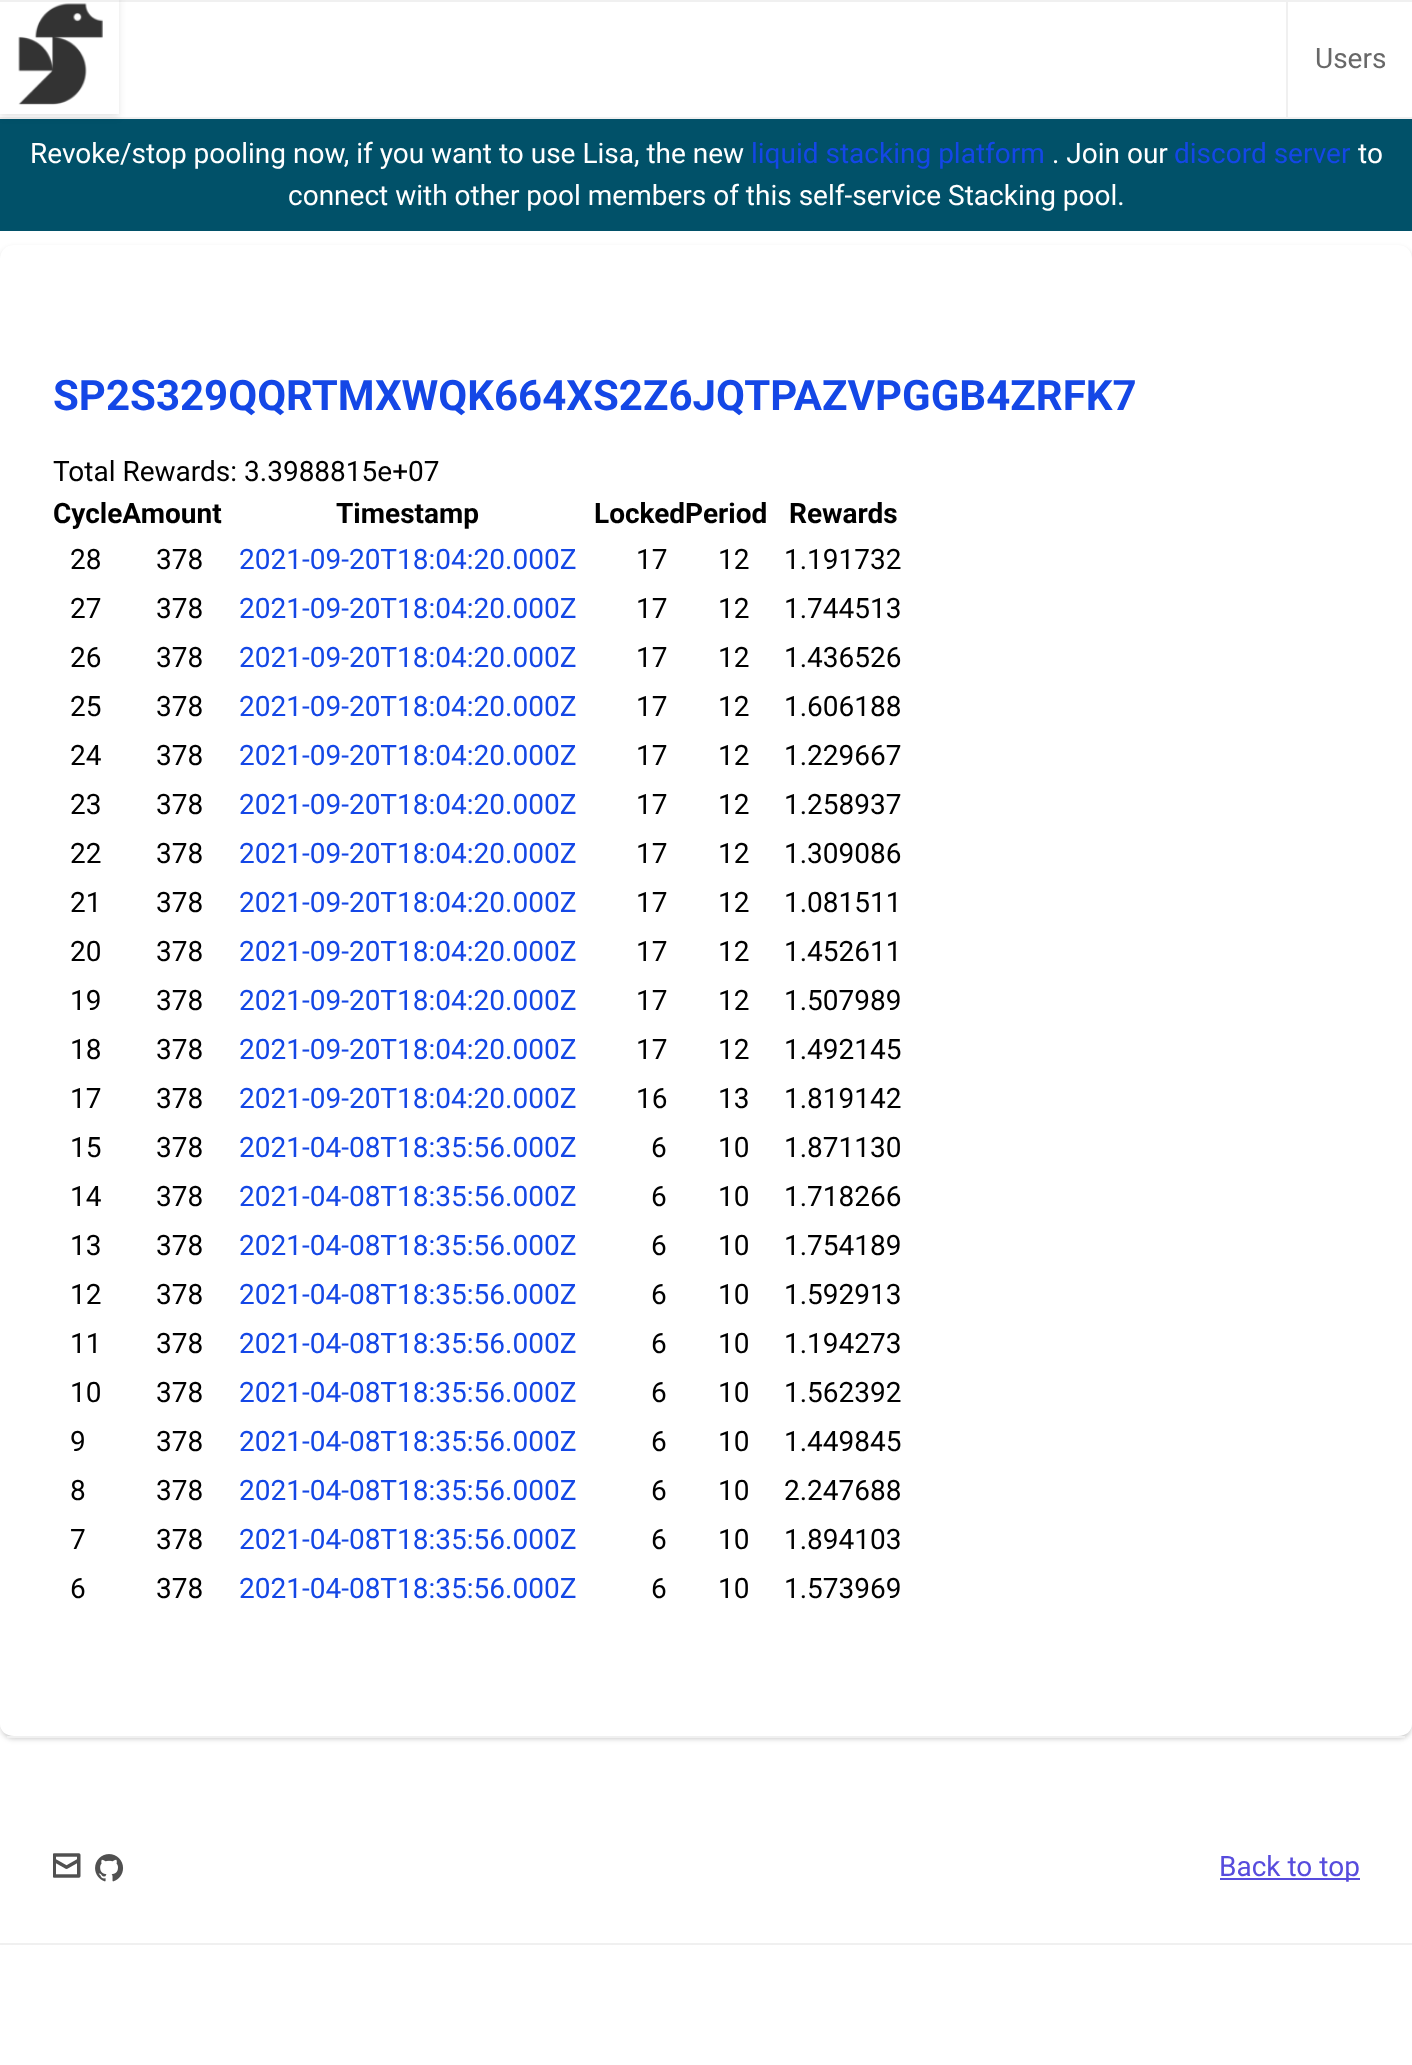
<svg xmlns="http://www.w3.org/2000/svg" width="1412" height="2065" viewBox="0 0 1412 2065">
  <defs>
    <clipPath id="clip1"><path d="M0 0H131V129H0ZM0-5H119V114H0Z" clip-rule="evenodd"/></clipPath>
  </defs>
  <rect width="100%" height="100%" fill="#fff"/>
  <path d="M0 0h1412v2H0z" fill="#f0f0f0"/>
  <path d="M0 117h1412v2H0z" fill="#f0f0f0"/>
  <path d="M0 119h1412v112H0z" fill="#015169"/>
  <g clip-path="url(#clip1)">
    <path d="M0 -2h119v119H0z" fill="#0000001a" filter="blur(3.5px)"/>
  </g>
  <image x="18" y="3" width="85" height="102" href="img/1.png"/>
  <path d="M1286 0h2v119H1286z" fill="#f0f0f0"/>
  <rect x="2" y="249" width="1409" height="1489" rx="12" fill="#0000001a" filter="blur(2px)"/>
  <rect y="247" width="1412" height="1493" rx="14" fill="#0000001a" filter="blur(2.5px)"/>
  <path d="M14 245H1398C1406 245 1412 251 1412 259V1724C1412 1731 1406 1736 1398 1736H14C6 1736 0 1731 0 1724V259C0 251 6 245 14 245Z" fill="#fff"/>
  <path d="M7 1736h1398v2H7z" fill="#f0f0f0"/>
  <path d="M0 1943h1412v2H0z" fill="#f0f0f0"/>
  <image x="53" y="1853" width="28" height="25" href="img/2.png"/>
  <image x="95" y="1854" width="29" height="28" href="img/3.png"/>
  <path d="M1220 1878h140v2H1220z" fill="#574cdd"/>
  <text x="1315" y="68" font-family="Roboto" font-size="28" fill="#686868">Users</text>
  <text x="30" y="163" font-family="Roboto" font-size="28" fill="#fff">Revoke/stop pooling now, if you want to use Lisa, the new</text>
  <text x="751" y="163" font-family="Roboto" font-size="28" fill="#1447e6">liquid stacking platform</text>
  <text x="1052" y="163" font-family="Roboto" font-size="28" fill="#fff">. Join our</text>
  <text x="1174" y="163" font-family="Roboto" font-size="28" fill="#1447e6">discord server</text>
  <g font-family="Roboto" font-size="28" fill="#fff">
    <text x="1358" y="163">to</text>
    <text x="288" y="205">connect with other pool members of this self-service Stacking pool.</text>
  </g>
  <text x="53" y="410" font-family="Roboto" font-size="42" font-weight="bold" fill="#1447e6">SP2S329QQRTMXWQK664XS2Z6JQTPAZVPGGB4ZRFK7</text>
  <text x="53" y="481" font-family="Roboto" font-size="28" fill="#000">Total Rewards: 3.3988815e+07</text>
  <g font-family="Roboto" font-size="28" font-weight="bold" fill="#000">
    <text x="53" y="523">CycleAmount</text>
    <text x="336" y="523">Timestamp</text>
    <text x="594" y="523">LockedPeriod</text>
    <text x="789" y="523">Rewards</text>
  </g>
  <g font-family="Roboto" font-size="28" fill="#000">
    <text x="70" y="569">28</text>
    <text x="156" y="569">378</text>
  </g>
  <text x="239" y="569" font-family="Roboto" font-size="28" fill="#1447e6">2021-09-20T18:04:20.000Z</text>
  <g font-family="Roboto" font-size="28" fill="#000">
    <text x="636" y="569">17</text>
    <text x="718" y="569">12</text>
    <text x="784" y="569">1.191732</text>
    <text x="70" y="618">27</text>
    <text x="156" y="618">378</text>
  </g>
  <text x="239" y="618" font-family="Roboto" font-size="28" fill="#1447e6">2021-09-20T18:04:20.000Z</text>
  <g font-family="Roboto" font-size="28" fill="#000">
    <text x="636" y="618">17</text>
    <text x="718" y="618">12</text>
    <text x="784" y="618">1.744513</text>
    <text x="70" y="667">26</text>
    <text x="156" y="667">378</text>
  </g>
  <text x="239" y="667" font-family="Roboto" font-size="28" fill="#1447e6">2021-09-20T18:04:20.000Z</text>
  <g font-family="Roboto" font-size="28" fill="#000">
    <text x="636" y="667">17</text>
    <text x="718" y="667">12</text>
    <text x="784" y="667">1.436526</text>
    <text x="70" y="716">25</text>
    <text x="156" y="716">378</text>
  </g>
  <text x="239" y="716" font-family="Roboto" font-size="28" fill="#1447e6">2021-09-20T18:04:20.000Z</text>
  <g font-family="Roboto" font-size="28" fill="#000">
    <text x="636" y="716">17</text>
    <text x="718" y="716">12</text>
    <text x="784" y="716">1.606188</text>
    <text x="70" y="765">24</text>
    <text x="156" y="765">378</text>
  </g>
  <text x="239" y="765" font-family="Roboto" font-size="28" fill="#1447e6">2021-09-20T18:04:20.000Z</text>
  <g font-family="Roboto" font-size="28" fill="#000">
    <text x="636" y="765">17</text>
    <text x="718" y="765">12</text>
    <text x="784" y="765">1.229667</text>
    <text x="70" y="814">23</text>
    <text x="156" y="814">378</text>
  </g>
  <text x="239" y="814" font-family="Roboto" font-size="28" fill="#1447e6">2021-09-20T18:04:20.000Z</text>
  <g font-family="Roboto" font-size="28" fill="#000">
    <text x="636" y="814">17</text>
    <text x="718" y="814">12</text>
    <text x="784" y="814">1.258937</text>
    <text x="70" y="863">22</text>
    <text x="156" y="863">378</text>
  </g>
  <text x="239" y="863" font-family="Roboto" font-size="28" fill="#1447e6">2021-09-20T18:04:20.000Z</text>
  <g font-family="Roboto" font-size="28" fill="#000">
    <text x="636" y="863">17</text>
    <text x="718" y="863">12</text>
    <text x="784" y="863">1.309086</text>
    <text x="70" y="912">21</text>
    <text x="156" y="912">378</text>
  </g>
  <text x="239" y="912" font-family="Roboto" font-size="28" fill="#1447e6">2021-09-20T18:04:20.000Z</text>
  <g font-family="Roboto" font-size="28" fill="#000">
    <text x="636" y="912">17</text>
    <text x="718" y="912">12</text>
    <text x="784" y="912">1.081511</text>
    <text x="70" y="961">20</text>
    <text x="156" y="961">378</text>
  </g>
  <text x="239" y="961" font-family="Roboto" font-size="28" fill="#1447e6">2021-09-20T18:04:20.000Z</text>
  <g font-family="Roboto" font-size="28" fill="#000">
    <text x="636" y="961">17</text>
    <text x="718" y="961">12</text>
    <text x="784" y="961">1.452611</text>
    <text x="70" y="1010">19</text>
    <text x="156" y="1010">378</text>
  </g>
  <text x="239" y="1010" font-family="Roboto" font-size="28" fill="#1447e6">2021-09-20T18:04:20.000Z</text>
  <g font-family="Roboto" font-size="28" fill="#000">
    <text x="636" y="1010">17</text>
    <text x="718" y="1010">12</text>
    <text x="784" y="1010">1.507989</text>
    <text x="70" y="1059">18</text>
    <text x="156" y="1059">378</text>
  </g>
  <text x="239" y="1059" font-family="Roboto" font-size="28" fill="#1447e6">2021-09-20T18:04:20.000Z</text>
  <g font-family="Roboto" font-size="28" fill="#000">
    <text x="636" y="1059">17</text>
    <text x="718" y="1059">12</text>
    <text x="784" y="1059">1.492145</text>
    <text x="70" y="1108">17</text>
    <text x="156" y="1108">378</text>
  </g>
  <text x="239" y="1108" font-family="Roboto" font-size="28" fill="#1447e6">2021-09-20T18:04:20.000Z</text>
  <g font-family="Roboto" font-size="28" fill="#000">
    <text x="636" y="1108">16</text>
    <text x="718" y="1108">13</text>
    <text x="784" y="1108">1.819142</text>
    <text x="70" y="1157">15</text>
    <text x="156" y="1157">378</text>
  </g>
  <text x="239" y="1157" font-family="Roboto" font-size="28" fill="#1447e6">2021-04-08T18:35:56.000Z</text>
  <g font-family="Roboto" font-size="28" fill="#000">
    <text x="651" y="1157">6</text>
    <text x="718" y="1157">10</text>
    <text x="784" y="1157">1.871130</text>
    <text x="70" y="1206">14</text>
    <text x="156" y="1206">378</text>
  </g>
  <text x="239" y="1206" font-family="Roboto" font-size="28" fill="#1447e6">2021-04-08T18:35:56.000Z</text>
  <g font-family="Roboto" font-size="28" fill="#000">
    <text x="651" y="1206">6</text>
    <text x="718" y="1206">10</text>
    <text x="784" y="1206">1.718266</text>
    <text x="70" y="1255">13</text>
    <text x="156" y="1255">378</text>
  </g>
  <text x="239" y="1255" font-family="Roboto" font-size="28" fill="#1447e6">2021-04-08T18:35:56.000Z</text>
  <g font-family="Roboto" font-size="28" fill="#000">
    <text x="651" y="1255">6</text>
    <text x="718" y="1255">10</text>
    <text x="784" y="1255">1.754189</text>
    <text x="70" y="1304">12</text>
    <text x="156" y="1304">378</text>
  </g>
  <text x="239" y="1304" font-family="Roboto" font-size="28" fill="#1447e6">2021-04-08T18:35:56.000Z</text>
  <g font-family="Roboto" font-size="28" fill="#000">
    <text x="651" y="1304">6</text>
    <text x="718" y="1304">10</text>
    <text x="784" y="1304">1.592913</text>
    <text x="70" y="1353">11</text>
    <text x="156" y="1353">378</text>
  </g>
  <text x="239" y="1353" font-family="Roboto" font-size="28" fill="#1447e6">2021-04-08T18:35:56.000Z</text>
  <g font-family="Roboto" font-size="28" fill="#000">
    <text x="651" y="1353">6</text>
    <text x="718" y="1353">10</text>
    <text x="784" y="1353">1.194273</text>
    <text x="70" y="1402">10</text>
    <text x="156" y="1402">378</text>
  </g>
  <text x="239" y="1402" font-family="Roboto" font-size="28" fill="#1447e6">2021-04-08T18:35:56.000Z</text>
  <g font-family="Roboto" font-size="28" fill="#000">
    <text x="651" y="1402">6</text>
    <text x="718" y="1402">10</text>
    <text x="784" y="1402">1.562392</text>
    <text x="70" y="1451">9</text>
    <text x="156" y="1451">378</text>
  </g>
  <text x="239" y="1451" font-family="Roboto" font-size="28" fill="#1447e6">2021-04-08T18:35:56.000Z</text>
  <g font-family="Roboto" font-size="28" fill="#000">
    <text x="651" y="1451">6</text>
    <text x="718" y="1451">10</text>
    <text x="784" y="1451">1.449845</text>
    <text x="70" y="1500">8</text>
    <text x="156" y="1500">378</text>
  </g>
  <text x="239" y="1500" font-family="Roboto" font-size="28" fill="#1447e6">2021-04-08T18:35:56.000Z</text>
  <g font-family="Roboto" font-size="28" fill="#000">
    <text x="651" y="1500">6</text>
    <text x="718" y="1500">10</text>
    <text x="784" y="1500">2.247688</text>
    <text x="70" y="1549">7</text>
    <text x="156" y="1549">378</text>
  </g>
  <text x="239" y="1549" font-family="Roboto" font-size="28" fill="#1447e6">2021-04-08T18:35:56.000Z</text>
  <g font-family="Roboto" font-size="28" fill="#000">
    <text x="651" y="1549">6</text>
    <text x="718" y="1549">10</text>
    <text x="784" y="1549">1.894103</text>
    <text x="70" y="1598">6</text>
    <text x="156" y="1598">378</text>
  </g>
  <text x="239" y="1598" font-family="Roboto" font-size="28" fill="#1447e6">2021-04-08T18:35:56.000Z</text>
  <g font-family="Roboto" font-size="28" fill="#000">
    <text x="651" y="1598">6</text>
    <text x="718" y="1598">10</text>
    <text x="784" y="1598">1.573969</text>
  </g>
  <text x="1219" y="1876" font-family="Roboto" font-size="28" fill="#574cdd">Back to top</text>
</svg>
